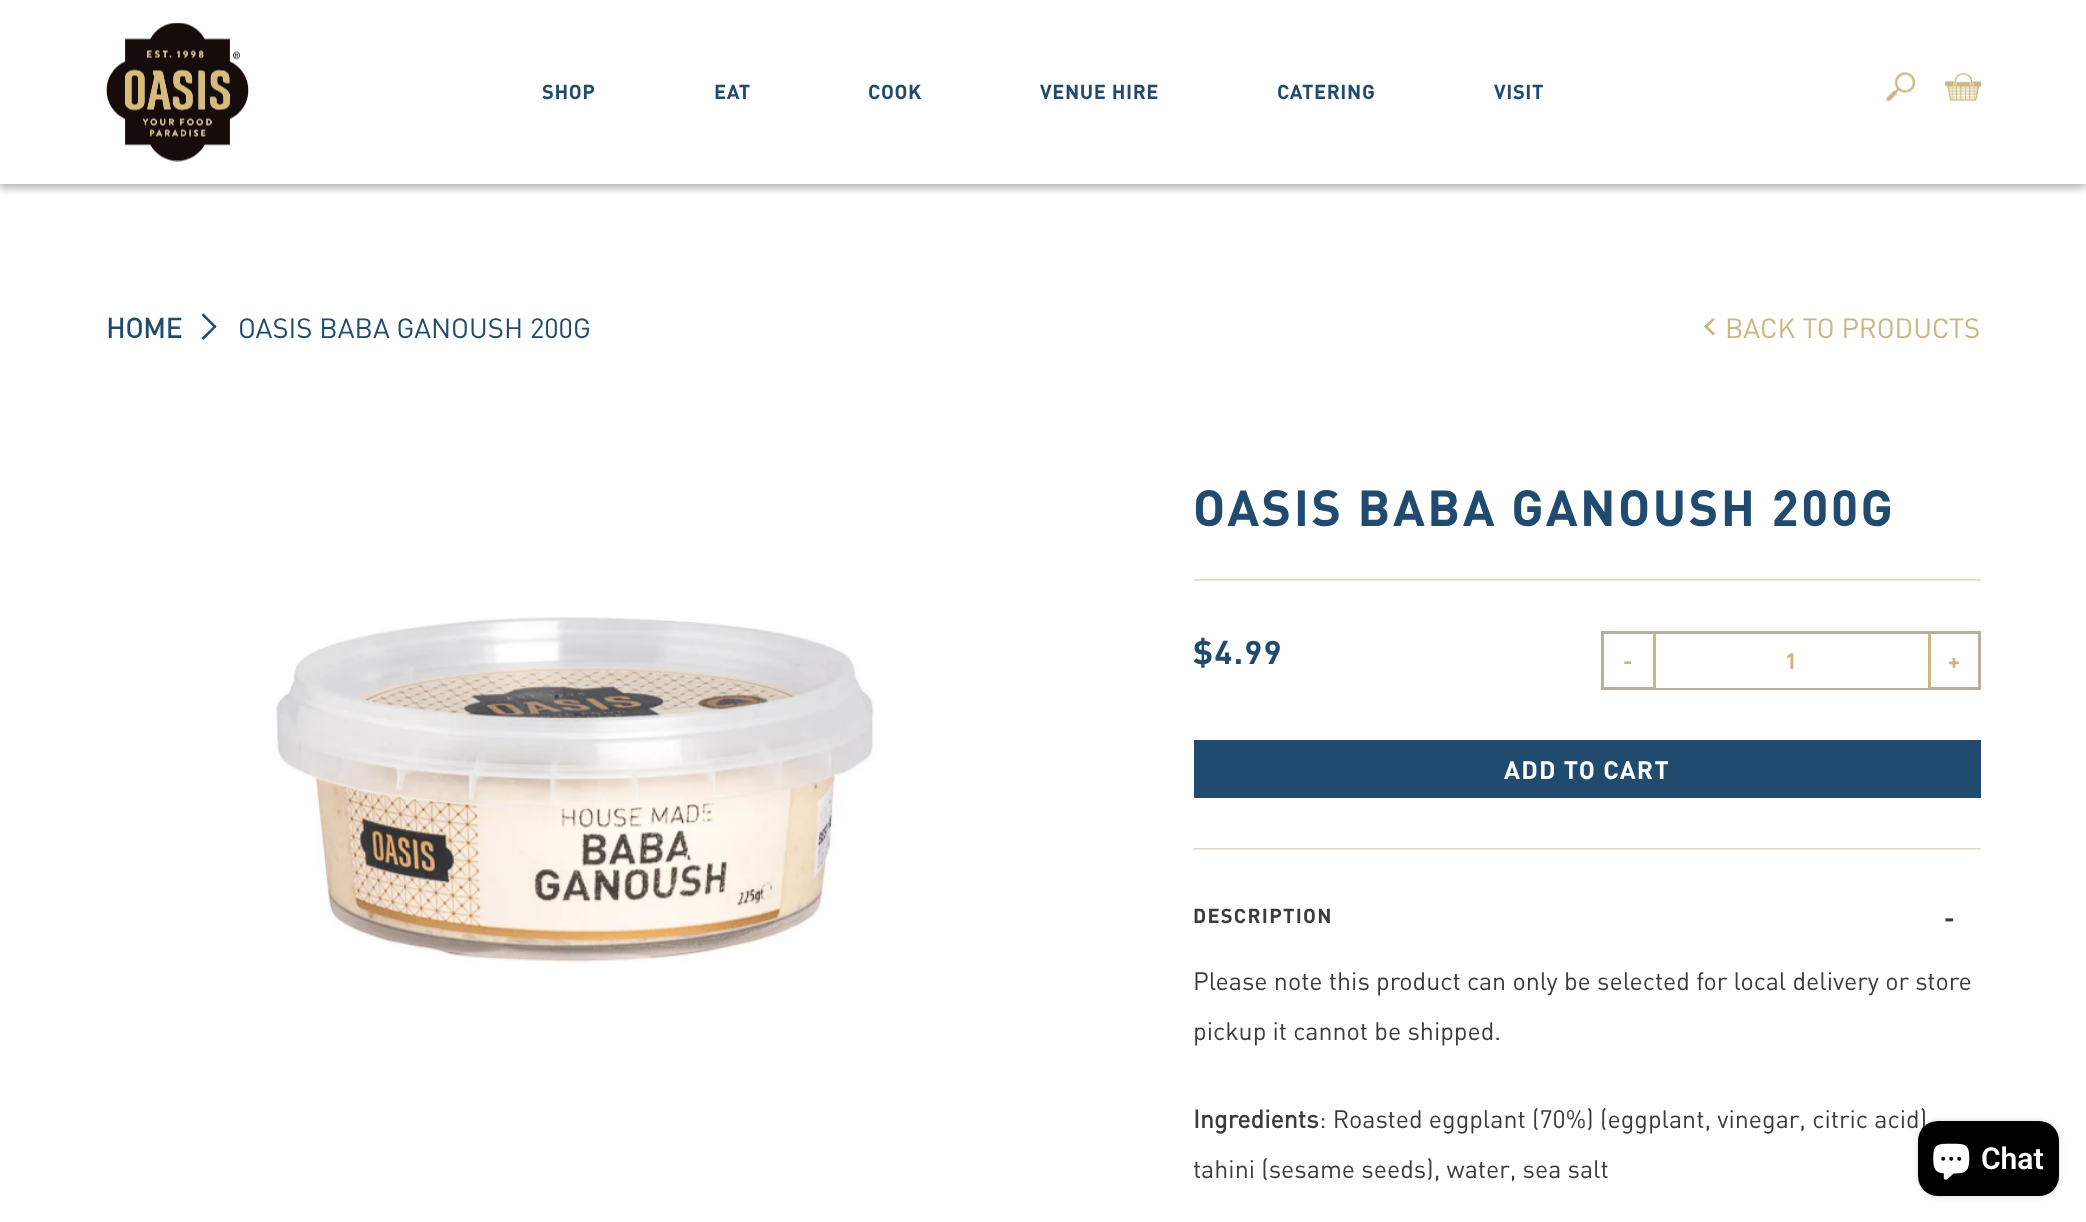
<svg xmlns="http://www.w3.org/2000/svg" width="2086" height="1222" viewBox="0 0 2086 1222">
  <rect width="100%" height="100%" fill="#fff"/>
  <path d="M0 4h2086v184H0z" fill="#00000029" filter="blur(4px)"/>
  <path d="M0 4h2086v184H0z" fill="#00000029" filter="blur(4px)"/>
  <path d="M0 0h2086v184H0z" fill="#fff"/>
  <image x="106" y="23" width="143" height="139" href="img/1.png"/>
  <image x="1886" y="72" width="29" height="30" href="img/2.png"/>
  <image x="1945" y="72" width="36" height="30" href="img/3.png"/>
  <path d="M201.5 315L203.5 313.5L216.5 326.5L215 328.5Z" fill="#204b6e"/>
  <path d="M201.5 338L215 325L216.5 326.5L203.5 340Z" fill="#204b6e"/>
  <path d="M1715 333.5L1713 335.5L1704 326.5L1706 325Z" fill="#cbb682"/>
  <path d="M1715 319.5L1706 328.5L1704 326.5L1713 318Z" fill="#cbb682"/>
  <image x="276" y="617" width="598" height="347" href="img/4.png"/>
  <path d="M1194 579H1981L1980 580H1195Z" fill="#dbd7cd"/>
  <path d="M1981 579V581L1980 580Z" fill="#cbb6824d"/>
  <path d="M1981 581H1194L1195 580H1980Z" fill="#cbb6824d"/>
  <path d="M1194 581V579L1195 580Z" fill="#8779574d"/>
  <path d="M1602.5 632.5h377v56H1602.5z" fill="none" stroke="#b9ad9b" stroke-width="3"/>
  <path d="M1656 687h272v1H1656z" fill="#fff"/>
  <path d="M1928 634h3v54H1928z" fill="#cbb682"/>
  <path d="M1653 634h3v54H1653z" fill="#cbb682"/>
  <path d="M1194 740h787v58H1194z" fill="#204b6e"/>
  <path d="M1194 848H1981L1980 849H1195Z" fill="#dbd7cd"/>
  <path d="M1981 847.5V850L1980 849Z" fill="#cbb6824d"/>
  <path d="M1981 850H1194L1195 849H1980Z" fill="#cbb6824d"/>
  <path d="M1194 850V847.5L1195 849Z" fill="#8779574d"/>
  <rect x="1918" y="1121" width="141" height="75" rx="20" fill="#00000026" filter="blur(3px)"/>
  <g font-family="DIN" font-size="20" font-weight="bold" letter-spacing="0.6" fill="#204b6e">
    <text x="542" y="99">SHOP</text>
    <text x="714" y="99">EAT</text>
    <text x="868" y="99">COOK</text>
    <text x="1040" y="99">VENUE HIRE</text>
    <text x="1277" y="99">CATERING</text>
    <text x="1494" y="99">VISIT</text>
  </g>
  <text x="106" y="338" font-family="'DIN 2'" font-size="27.5" font-weight="bold" fill="#204b6e">HOME</text>
  <text x="238" y="338" font-family="DIN" font-size="27.5" fill="#204b6e">OASIS BABA GANOUSH 200G</text>
  <text x="1725" y="338" font-family="DIN" font-size="27.5" fill="#cbb682">BACK TO PRODUCTS</text>
  <text x="1193" y="526" font-family="DIN" font-size="50" font-weight="bold" letter-spacing="2.5" fill="#204b6e">OASIS BABA GANOUSH 200G</text>
  <text x="1193" y="664" font-family="DIN" font-size="32.5" font-weight="bold" letter-spacing="1.5" fill="#204b6e">$4.99</text>
  <g font-family="DIN" font-size="22" font-weight="bold" fill="#cbb682">
    <text x="1623" y="669">-</text>
    <text x="1785" y="669">1</text>
    <text x="1948" y="669">+</text>
  </g>
  <text x="1504" y="779" font-family="DIN" font-size="25" font-weight="bold" letter-spacing="1.25" fill="#fff">ADD TO CART</text>
  <text x="1193" y="923" font-family="DIN" font-size="20" font-weight="bold" letter-spacing="1.25" fill="#3b3b3b">DESCRIPTION</text>
  <text x="1944" y="927" font-family="DIN" font-size="25" font-weight="bold" letter-spacing="1.25" fill="#3b3b3b">-</text>
  <g font-family="DIN" font-size="25" fill="#3b3b3b">
    <text x="1193" y="990">Please note this product can only be selected for local delivery or store</text>
    <text x="1193" y="1040">pickup it cannot be shipped.</text>
  </g>
  <text x="1193" y="1128" font-family="'DIN 2'" font-size="25" font-weight="bold" fill="#3b3b3b">Ingredients</text>
  <g font-family="DIN" font-size="25" fill="#3b3b3b">
    <text x="1319" y="1128">: Roasted eggplant (70%) (eggplant, vinegar, citric acid)</text>
    <text x="1193" y="1178">tahini (sesame seeds), water, sea salt</text>
  </g>
  <rect x="1918" y="1121" width="141" height="75" rx="20" fill="#000"/>
  <image x="1933" y="1143" width="37" height="37" href="img/5.png"/>
  <text x="1981" y="1169" font-family="Roboto" font-size="30" font-weight="600" fill="#fff">Chat</text>
</svg>
